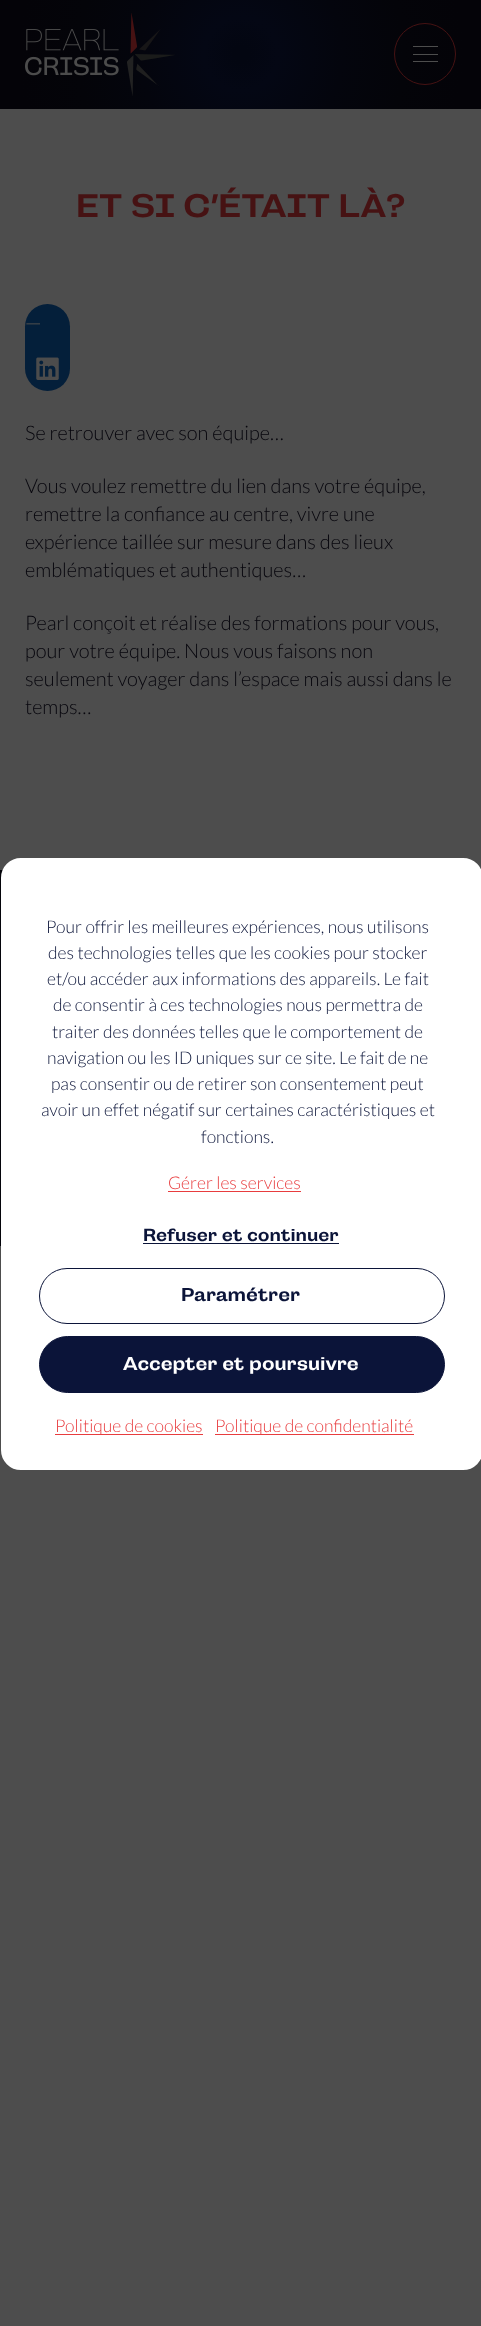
<svg xmlns="http://www.w3.org/2000/svg" width="481" height="2326" viewBox="0 0 481 2326">
  <defs>
    <radialGradient id="g1" gradientUnits="userSpaceOnUse" cx="241" cy="54" r="247"><stop offset="0" stop-color="#030611"/><stop offset="0.03" stop-color="#030611"/><stop offset="0.15" stop-color="#040714"/><stop offset="0.41" stop-color="#04050d"/><stop offset="0.66" stop-color="#040409"/><stop offset="0.9" stop-color="#040308"/><stop offset="1" stop-color="#040308"/></radialGradient>
    <radialGradient id="g2" gradientUnits="userSpaceOnUse" cx="241" cy="1058" r="305"><stop offset="0" stop-color="#040713"/><stop offset="1" stop-color="#04040a"/></radialGradient>
  </defs>
  <rect width="100%" height="100%" fill="#4d4d4d"/>
  <path d="M0 0h481v109H0z" fill="url(#g1)"/>
  <image x="25" y="13" width="150" height="83" href="img/1.png"/>
  <circle cx="425" cy="54" r="30.5" fill="none" stroke="#461213"/>
  <path d="M413 46h25v1H413z" fill="#4d4d4d"/>
  <path d="M413 54h25v1H413z" fill="#4d4d4d"/>
  <path d="M413 61h25v1H413z" fill="#4d4d4d"/>
  <rect x="25" y="304" width="45" height="87" rx="22.5" fill="#041f3a"/>
  <image x="36" y="357" width="23" height="23" href="img/2.png"/>
  <path d="M0 870h3v376H0z" fill="url(#g2)"/>
  <rect x="7.5" y="864.5" width="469" height="599" rx="13.5" fill="#fff" stroke="#fff" stroke-width="13"/>
  <path d="M168 1191h133v1H168z" fill="#e83c3e"/>
  <path d="M143 1243h196v1H143z" fill="#0b1439"/>
  <rect x="39.5" y="1268.5" width="405" height="55" rx="27.5" fill="none" stroke="#0b1439"/>
  <rect x="39.5" y="1336.5" width="405" height="56" rx="28" fill="#0b1439" stroke="#0b1439"/>
  <path d="M55 1434h148v1H55z" fill="#e83c3e"/>
  <path d="M215 1434h199v1H215z" fill="#e83c3e"/>
  <text x="76" y="217" font-family="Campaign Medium" font-size="32.5" font-weight="500" fill="#461213">ET SI C’ÉTAIT LÀ?</text>
  <text x="25" y="334" font-family="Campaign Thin" font-size="30" font-weight="100" fill="#4d4d4d">-</text>
  <g font-family="Lato" font-size="20" font-weight="300" fill="#07060d">
    <text x="25" y="440">Se retrouver avec son équipe…</text>
    <text x="25" y="493">Vous voulez remettre du lien dans votre équipe,</text>
    <text x="25" y="521">remettre la confiance au centre, vivre une</text>
    <text x="25" y="549">expérience taillée sur mesure dans des lieux</text>
    <text x="25" y="577">emblématiques et authentiques…</text>
    <text x="25" y="630">Pearl conçoit et réalise des formations pour vous,</text>
    <text x="25" y="658">pour votre équipe. Nous vous faisons non</text>
    <text x="25" y="686">seulement voyager dans l’espace mais aussi dans le</text>
    <text x="25" y="714">temps…</text>
  </g>
  <g font-family="Lato" font-size="17.5" font-weight="300" fill="#0b1439">
    <text x="46" y="933">Pour offrir les meilleures expériences, nous utilisons</text>
    <text x="48" y="959">des technologies telles que les cookies pour stocker</text>
    <text x="47" y="985">et/ou accéder aux informations des appareils. Le fait</text>
    <text x="53" y="1011">de consentir à ces technologies nous permettra de</text>
    <text x="52" y="1038">traiter des données telles que le comportement de</text>
    <text x="47" y="1064">navigation ou les ID uniques sur ce site. Le fait de ne</text>
    <text x="51" y="1090">pas consentir ou de retirer son consentement peut</text>
    <text x="41" y="1116">avoir un effet négatif sur certaines caractéristiques et</text>
    <text x="201" y="1143">fonctions.</text>
  </g>
  <text x="168" y="1189" font-family="Lato" font-size="17.5" font-weight="300" fill="#e83c3e">Gérer les services</text>
  <text x="143" y="1241" font-family="Campaign Medium" font-size="17.5" font-weight="500" fill="#0b1439">Refuser et continuer</text>
  <text x="181" y="1301" font-family="Campaign Medium" font-size="18.75" font-weight="500" fill="#0b1439">Paramétrer</text>
  <text x="123" y="1370" font-family="Campaign Medium" font-size="18.75" font-weight="500" fill="#fff">Accepter et poursuivre</text>
  <g font-family="Lato" font-size="17.5" font-weight="300" fill="#e83c3e">
    <text x="55" y="1432">Politique de cookies</text>
    <text x="215" y="1432">Politique de confidentialité</text>
  </g>
</svg>
